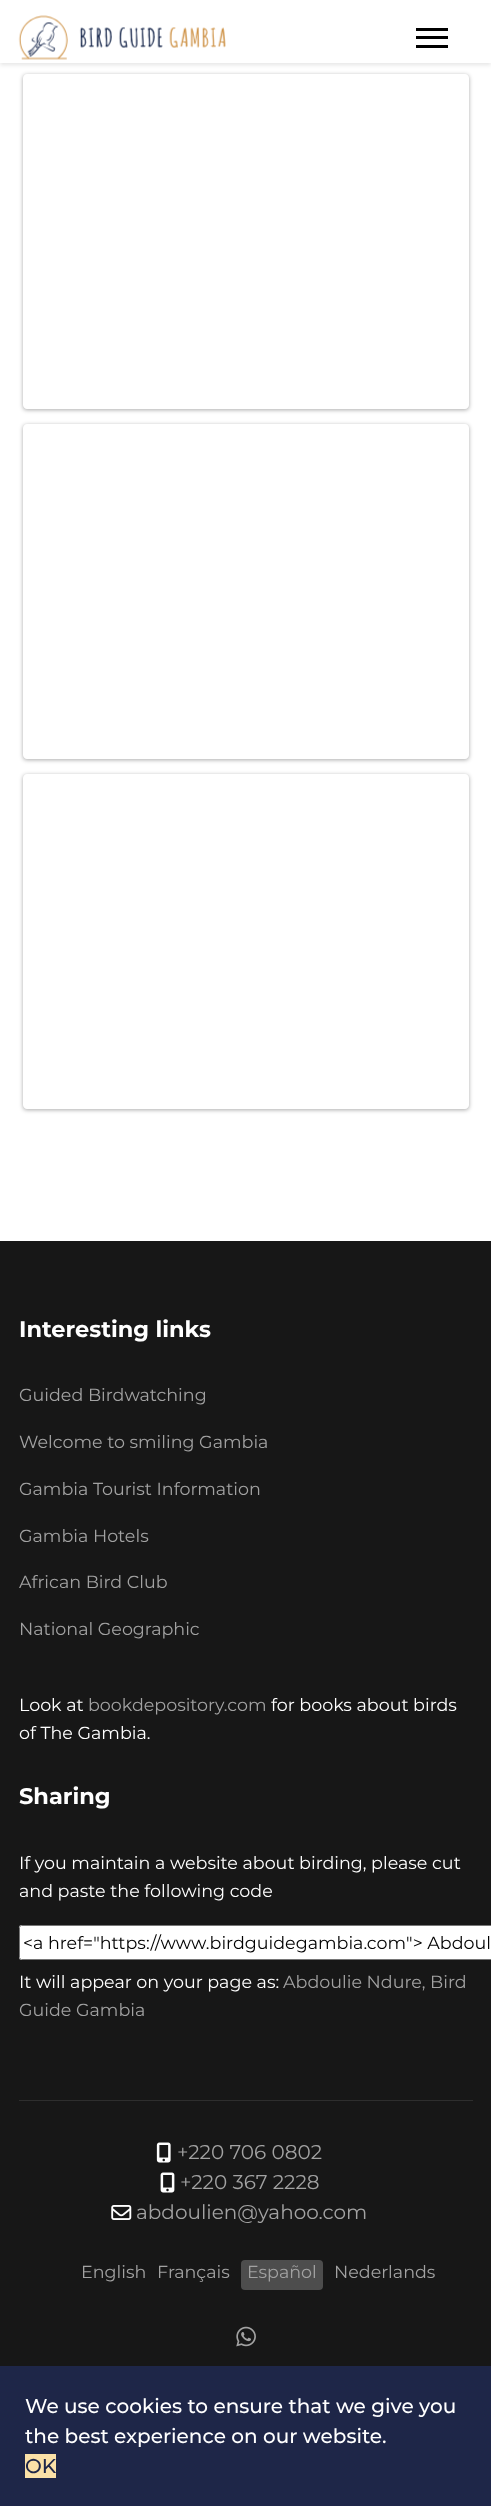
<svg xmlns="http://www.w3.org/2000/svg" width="491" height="2506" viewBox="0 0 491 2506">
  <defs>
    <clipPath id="clip1"><path d="M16 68H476V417H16ZM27 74H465C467 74 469 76 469 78V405C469 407 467 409 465 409H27C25 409 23 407 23 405V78C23 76 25 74 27 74Z" clip-rule="evenodd"/></clipPath>
    <clipPath id="clip2"><path d="M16 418H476V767H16ZM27 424H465C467 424 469 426 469 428V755C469 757 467 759 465 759H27C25 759 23 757 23 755V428C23 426 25 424 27 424Z" clip-rule="evenodd"/></clipPath>
    <clipPath id="clip3"><path d="M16 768H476V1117H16ZM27 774H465C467 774 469 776 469 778V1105C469 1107 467 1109 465 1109H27C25 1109 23 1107 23 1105V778C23 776 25 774 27 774Z" clip-rule="evenodd"/></clipPath>
  </defs>
  <rect width="100%" height="100%" fill="#fff"/>
  <path d="M0 3h491v62H0z" fill="#0000001a" filter="blur(2px)"/>
  <path d="M0 0h491v63H0z" fill="#fff"/>
  <image x="18" y="15" width="208" height="45" href="img/1.png"/>
  <path d="M416 28h32v3H416z" fill="#000"/>
  <path d="M416 36h32v3H416z" fill="#000"/>
  <path d="M416 45h32v3H416z" fill="#000"/>
  <g clip-path="url(#clip1)">
    <rect x="23" y="75" width="446" height="335" rx="4" fill="#00000054" filter="blur(2px)"/>
  </g>
  <g clip-path="url(#clip2)">
    <rect x="23" y="425" width="446" height="335" rx="4" fill="#00000054" filter="blur(2px)"/>
  </g>
  <g clip-path="url(#clip3)">
    <rect x="23" y="775" width="446" height="335" rx="4" fill="#00000054" filter="blur(2px)"/>
  </g>
  <path d="M0 1241h491v1125H0z" fill="#171717"/>
  <path d="M21.5 1925H491V1960H21.5C20 1960 19 1959 19 1957.5V1927.5C19 1926 20 1925 21.5 1925Z" fill="#fff"/>
  <rect x="19.5" y="1925.5" width="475" height="34" rx="2" fill="none" stroke="#767676"/>
  <path d="M19 2100h454v1H19z" fill="#2e2e2e"/>
  <image x="156" y="2142" width="15" height="21" href="img/2.png"/>
  <image x="160" y="2172" width="15" height="21" href="img/3.png"/>
  <image x="111" y="2205" width="21" height="15" href="img/4.png"/>
  <rect x="241" y="2260" width="82" height="30" rx="4" fill="#4d4d4d"/>
  <image x="236" y="2326" width="20" height="21" href="img/5.png"/>
  <path d="M0 2366h491v140H0z" fill="#1e2648"/>
  <path d="M25 2454h31v24H25z" fill="#fbe1a7"/>
  <text x="19" y="1337" font-family="Montserrat" font-size="22.5" font-weight="bold" fill="#fff">Interesting links</text>
  <g font-family="Montserrat" font-size="17.5" fill="#a2a2a2">
    <text x="19" y="1401">Guided Birdwatching</text>
    <text x="19" y="1448">Welcome to smiling Gambia</text>
    <text x="19" y="1495">Gambia Tourist Information</text>
    <text x="19" y="1542">Gambia Hotels</text>
    <text x="19" y="1588">African Bird Club</text>
    <text x="19" y="1635">National Geographic</text>
  </g>
  <text x="19" y="1711" font-family="Montserrat" font-size="17.5" fill="#fff">Look at</text>
  <text x="88" y="1711" font-family="Montserrat" font-size="17.5" fill="#a2a2a2">bookdepository.com</text>
  <g font-family="Montserrat" font-size="17.5" fill="#fff">
    <text x="271" y="1711">for books about birds</text>
    <text x="19" y="1739">of The Gambia.</text>
  </g>
  <text x="19" y="1804" font-family="Montserrat" font-size="22.5" font-weight="bold" fill="#fff">Sharing</text>
  <g font-family="Montserrat" font-size="17.5" fill="#fff">
    <text x="19" y="1869">If you maintain a website about birding, please cut</text>
    <text x="19" y="1897">and paste the following code</text>
  </g>
  <text x="23" y="1949" font-family="Montserrat" font-size="17.5" fill="#000">&lt;a href="https://www.birdguidegambia.com"&gt; Abdoul</text>
  <text x="19" y="1988" font-family="Montserrat" font-size="17.5" fill="#fff">It will appear on your page as:</text>
  <g font-family="Montserrat" font-size="17.5" fill="#a2a2a2">
    <text x="283" y="1988">Abdoulie Ndure, Bird</text>
    <text x="19" y="2016">Guide Gambia</text>
  </g>
  <g font-family="Montserrat" font-size="20" fill="#a2a2a2">
    <text x="177" y="2159">+220 706 0802</text>
    <text x="180" y="2189">+220 367 2228</text>
    <text x="136" y="2219">abdoulien@yahoo.com</text>
  </g>
  <g font-family="Montserrat" font-size="17.5" fill="#a2a2a2">
    <text x="81" y="2278">English</text>
    <text x="157" y="2278">Français</text>
    <text x="247" y="2278">Español</text>
    <text x="334" y="2278">Nederlands</text>
  </g>
  <g font-family="Montserrat" font-size="20" font-weight="500" fill="#fff">
    <text x="25" y="2413">We use cookies to ensure that we give you</text>
    <text x="25" y="2443">the best experience on our website.</text>
  </g>
  <text x="25" y="2473" font-family="Montserrat" font-size="20" font-weight="500" fill="#1e2648">OK</text>
</svg>
